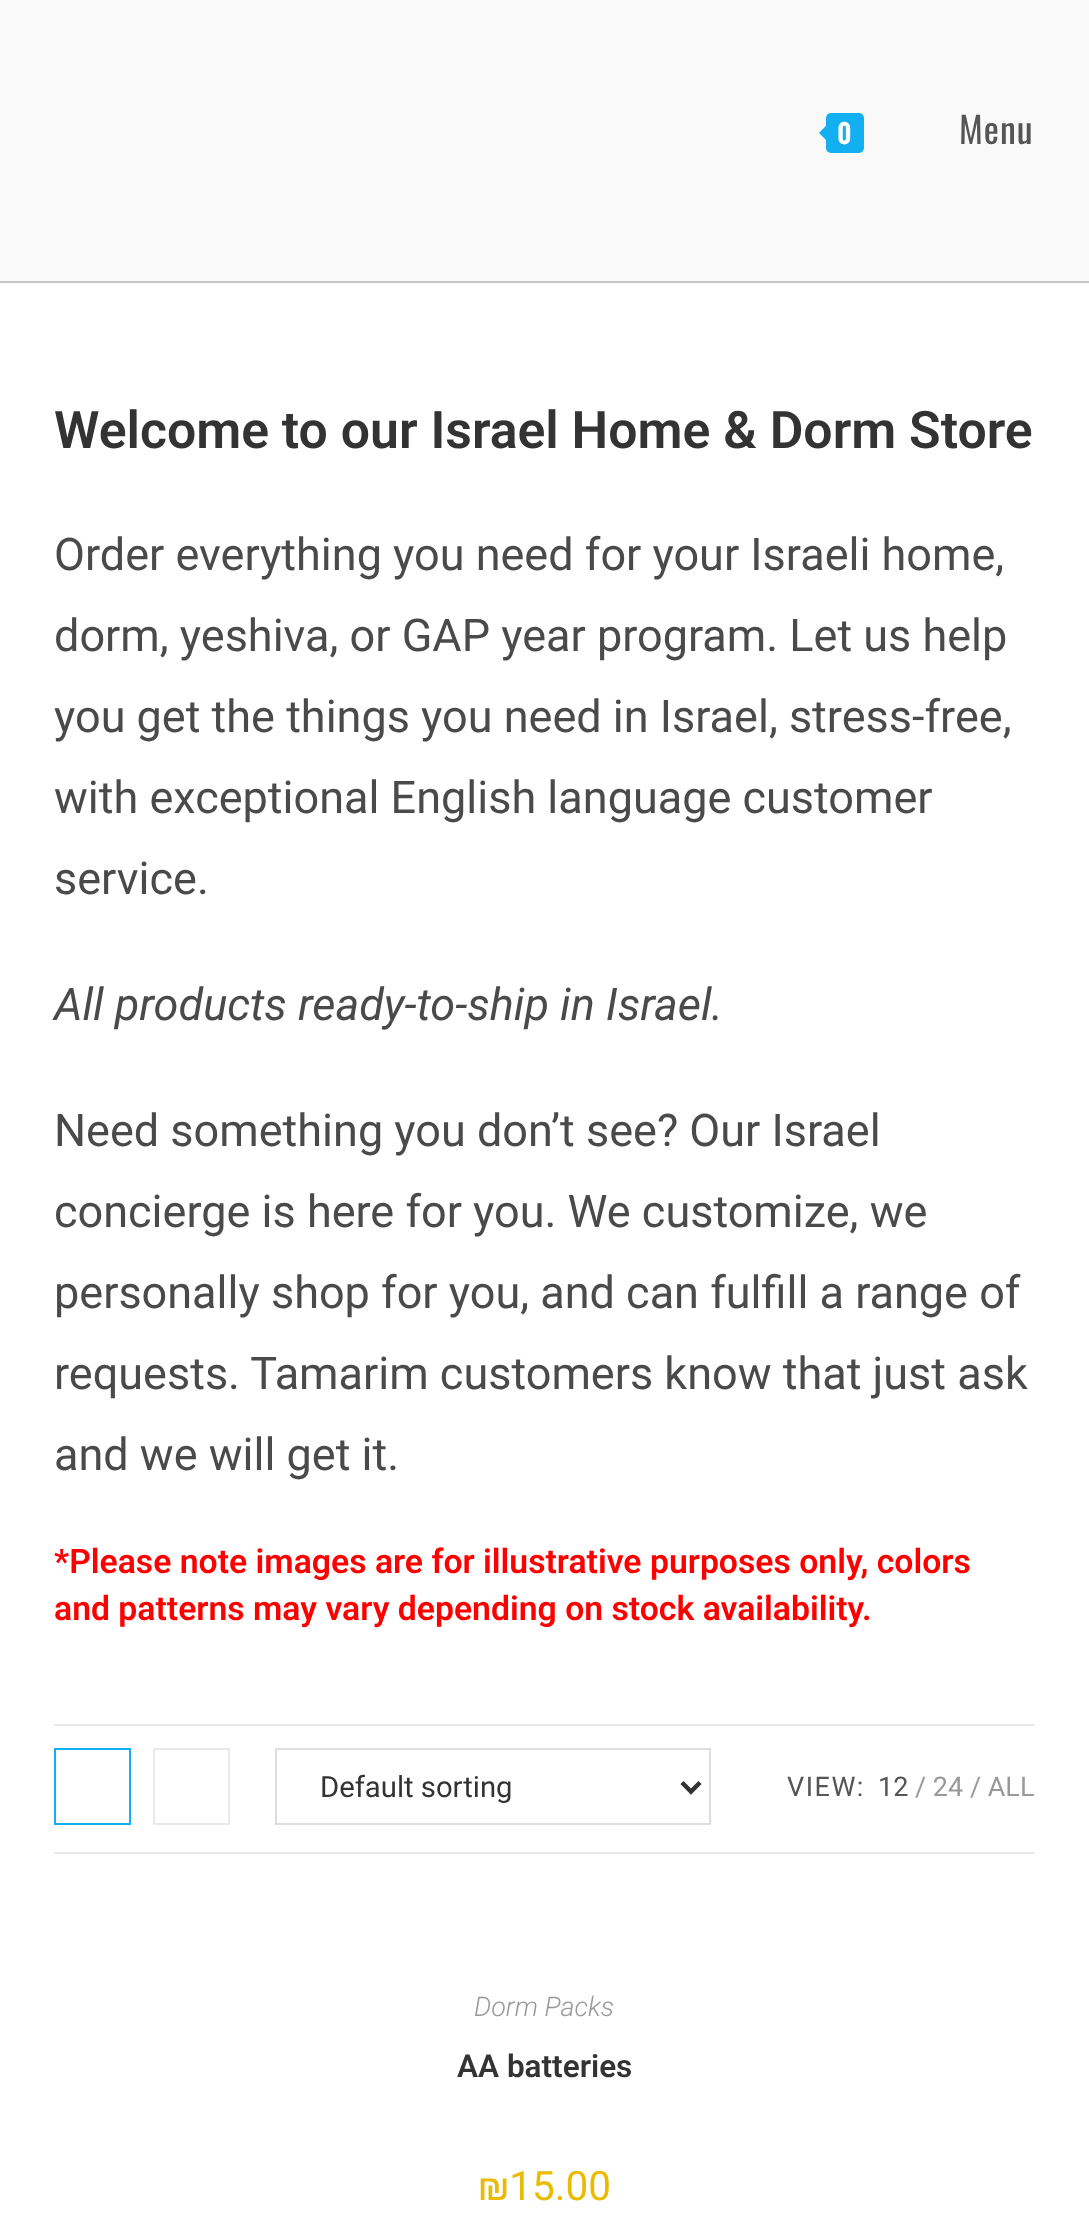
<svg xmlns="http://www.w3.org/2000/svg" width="1089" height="2232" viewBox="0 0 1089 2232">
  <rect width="100%" height="100%" fill="#fff"/>
  <path d="M0 0h1089v284H0z" fill="#f9f9f9"/>
  <path d="M0 281h1089v2H0z" fill="#c6c6c6"/>
  <rect x="826" y="113" width="38" height="40" rx="5" fill="#13aff0"/>
  <path d="M830 121.5V144L819 133Z" fill="#13aff0"/>
  <path d="M54 1724h981v2H54z" fill="#eaeaea"/>
  <path d="M54 1852h981v2H54z" fill="#eaeaea"/>
  <path d="M55 1749h75v75H55z" fill="none" stroke="#13aff0" stroke-width="2"/>
  <path d="M154 1749h75v75H154z" fill="none" stroke="#eaeaea" stroke-width="2"/>
  <path d="M276 1749h434v75H276z" fill="none" stroke="#ddd" stroke-width="2"/>
  <path d="M682 1782.5L691 1791.5L700 1782.5" fill="none" stroke="#333" stroke-width="4.5"/>
  <text x="837" y="144" font-family="Oswald" font-size="27" font-weight="600" letter-spacing="1" fill="#fff">0</text>
  <text x="959" y="144" font-family="Oswald" font-size="36" letter-spacing="1" fill="#555">Menu</text>
  <text x="54" y="448" font-family="Roboto" font-size="51.75" font-weight="600" fill="#333">Welcome to our Israel Home &amp; Dorm Store</text>
  <g font-family="Roboto" font-size="45" fill="#4a4a4a">
    <text x="54" y="570">Order everything you need for your Israeli home,</text>
    <text x="54" y="651">dorm, yeshiva, or GAP year program. Let us help</text>
    <text x="54" y="732">you get the things you need in Israel, stress-free,</text>
    <text x="54" y="813">with exceptional English language customer</text>
    <text x="54" y="894">service.</text>
  </g>
  <text x="54" y="1020" font-family="Roboto" font-size="45" font-style="italic" fill="#4a4a4a">All products ready-to-ship in Israel.</text>
  <g font-family="Roboto" font-size="45" fill="#4a4a4a">
    <text x="54" y="1146">Need something you don’t see? Our Israel</text>
    <text x="54" y="1227">concierge is here for you. We customize, we</text>
    <text x="54" y="1308">personally shop for you, and can fulfill a range of</text>
    <text x="54" y="1389">requests. Tamarim customers know that just ask</text>
    <text x="54" y="1470">and we will get it.</text>
  </g>
  <g font-family="Roboto" font-size="33.75" font-weight="600" fill="#f00">
    <text x="54" y="1573">*Please note images are for illustrative purposes only, colors</text>
    <text x="54" y="1620">and patterns may vary depending on stock availability.</text>
  </g>
  <text x="320" y="1797" font-family="Roboto" font-size="29.25" fill="#333">Default sorting</text>
  <text x="787" y="1796" font-family="Roboto" font-size="27" letter-spacing="1.5" fill="#555">VIEW:</text>
  <text x="878" y="1796" font-family="Roboto" font-size="27" fill="#555">12</text>
  <text x="915" y="1796" font-family="Roboto" font-size="27" fill="#999">/ 24 / ALL</text>
  <text x="474" y="2016" font-family="Roboto" font-size="27" font-weight="300" font-style="italic" fill="#999">Dorm Packs</text>
  <text x="457" y="2077" font-family="Roboto" font-size="31.5" font-weight="600" fill="#333">AA batteries</text>
  <text x="478" y="2200" font-family="Roboto" font-size="40.5" fill="#eabb00">₪15.00</text>
</svg>
